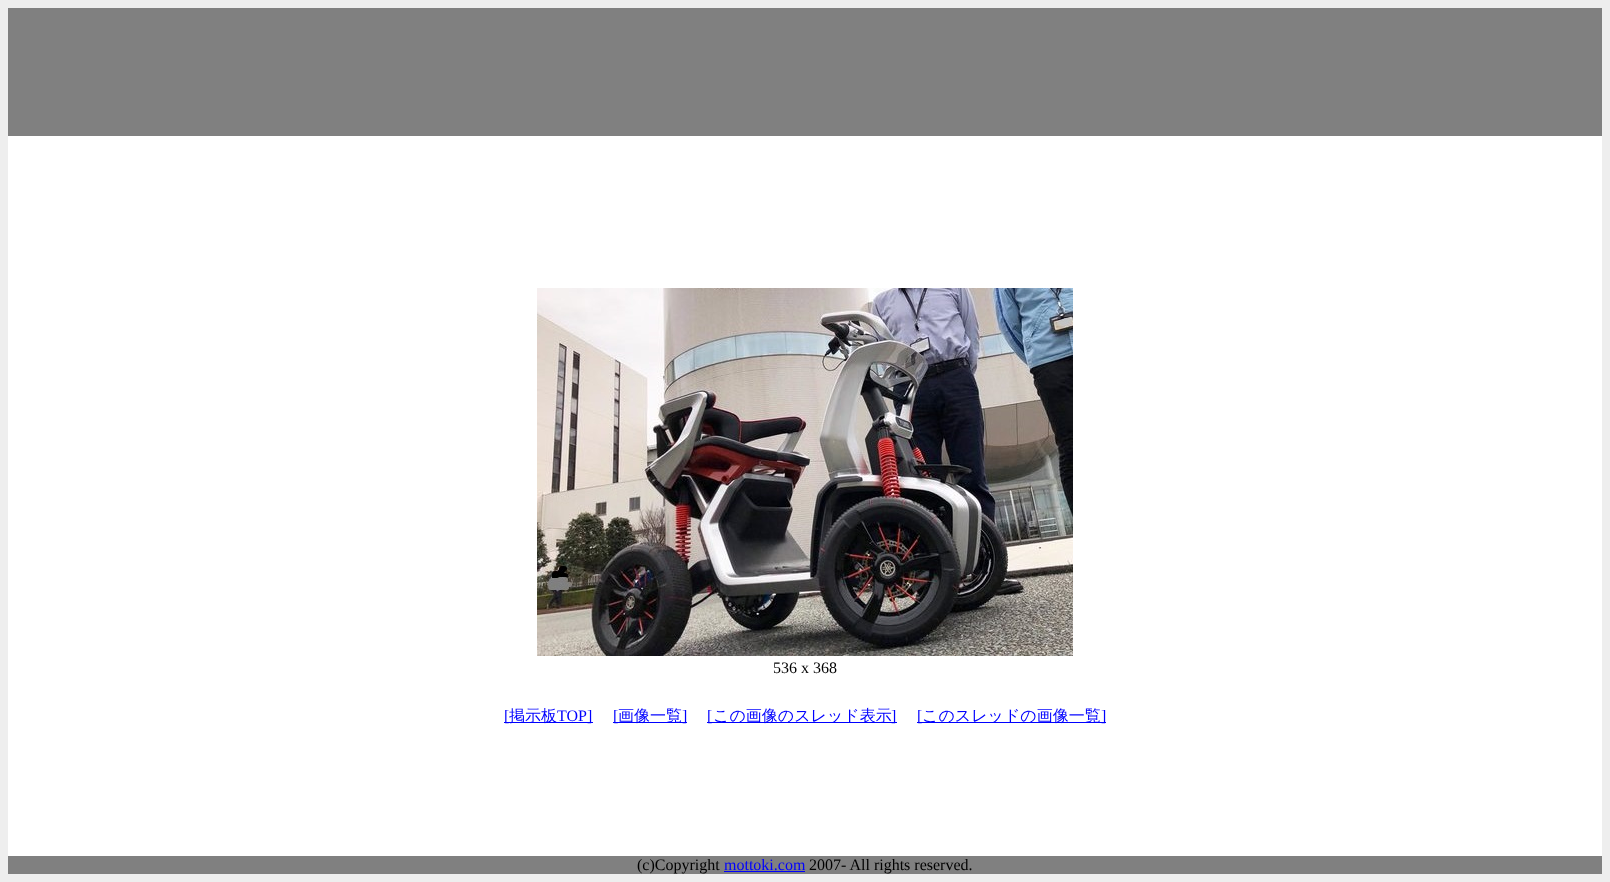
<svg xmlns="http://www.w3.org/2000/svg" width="1610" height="882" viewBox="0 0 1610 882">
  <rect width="100%" height="100%" fill="#eee"/>
  <path d="M8 8h1594v128H8z" fill="#808080"/>
  <path d="M8 136h1594v720H8z" fill="#fff"/>
  <image x="537" y="288" width="536" height="368" href="img/1.png"/>
  <path d="M504 722h89v1H504z" fill="#00f"/>
  <path d="M613 722h74v1H613z" fill="#00f"/>
  <path d="M707 722h190v1H707z" fill="#00f"/>
  <path d="M917 722h189v1H917z" fill="#00f"/>
  <path d="M8 856h1594v18H8z" fill="#808080"/>
  <path d="M724 871h81v1H724z" fill="#00f"/>
  <text x="773" y="673" font-family="Liberation Serif" font-size="16" fill="#000">536 x 368</text>
  <text x="504" y="721" font-family="Liberation Serif" font-size="16" fill="#00f">[</text>
  <text x="509" y="721" font-family="WenQuanYi Zen Hei" font-size="16" font-weight="500" fill="#00f">掲示板</text>
  <g font-family="Liberation Serif" font-size="16" fill="#00f">
    <text x="557" y="721">TOP]</text>
    <text x="613" y="721">[</text>
  </g>
  <text x="618" y="721" font-family="WenQuanYi Zen Hei" font-size="16" font-weight="500" fill="#00f">画像一覧</text>
  <g font-family="Liberation Serif" font-size="16" fill="#00f">
    <text x="682" y="721">]</text>
    <text x="707" y="721">[</text>
  </g>
  <text x="713" y="721" font-family="WenQuanYi Zen Hei" font-size="16" font-weight="500" fill="#00f">この画像のスレッド表示</text>
  <g font-family="Liberation Serif" font-size="16" fill="#00f">
    <text x="891" y="721">]</text>
    <text x="917" y="721">[</text>
  </g>
  <text x="922" y="721" font-family="WenQuanYi Zen Hei" font-size="16" font-weight="500" fill="#00f">このスレッドの画像一覧</text>
  <text x="1101" y="721" font-family="Liberation Serif" font-size="16" fill="#00f">]</text>
  <text x="637" y="870" font-family="Liberation Serif" font-size="16" fill="#000">(c)Copyright</text>
  <text x="724" y="870" font-family="Liberation Serif" font-size="16" fill="#00f">mottoki.com</text>
  <text x="809" y="870" font-family="Liberation Serif" font-size="16" fill="#000">2007- All rights reserved.</text>
</svg>
